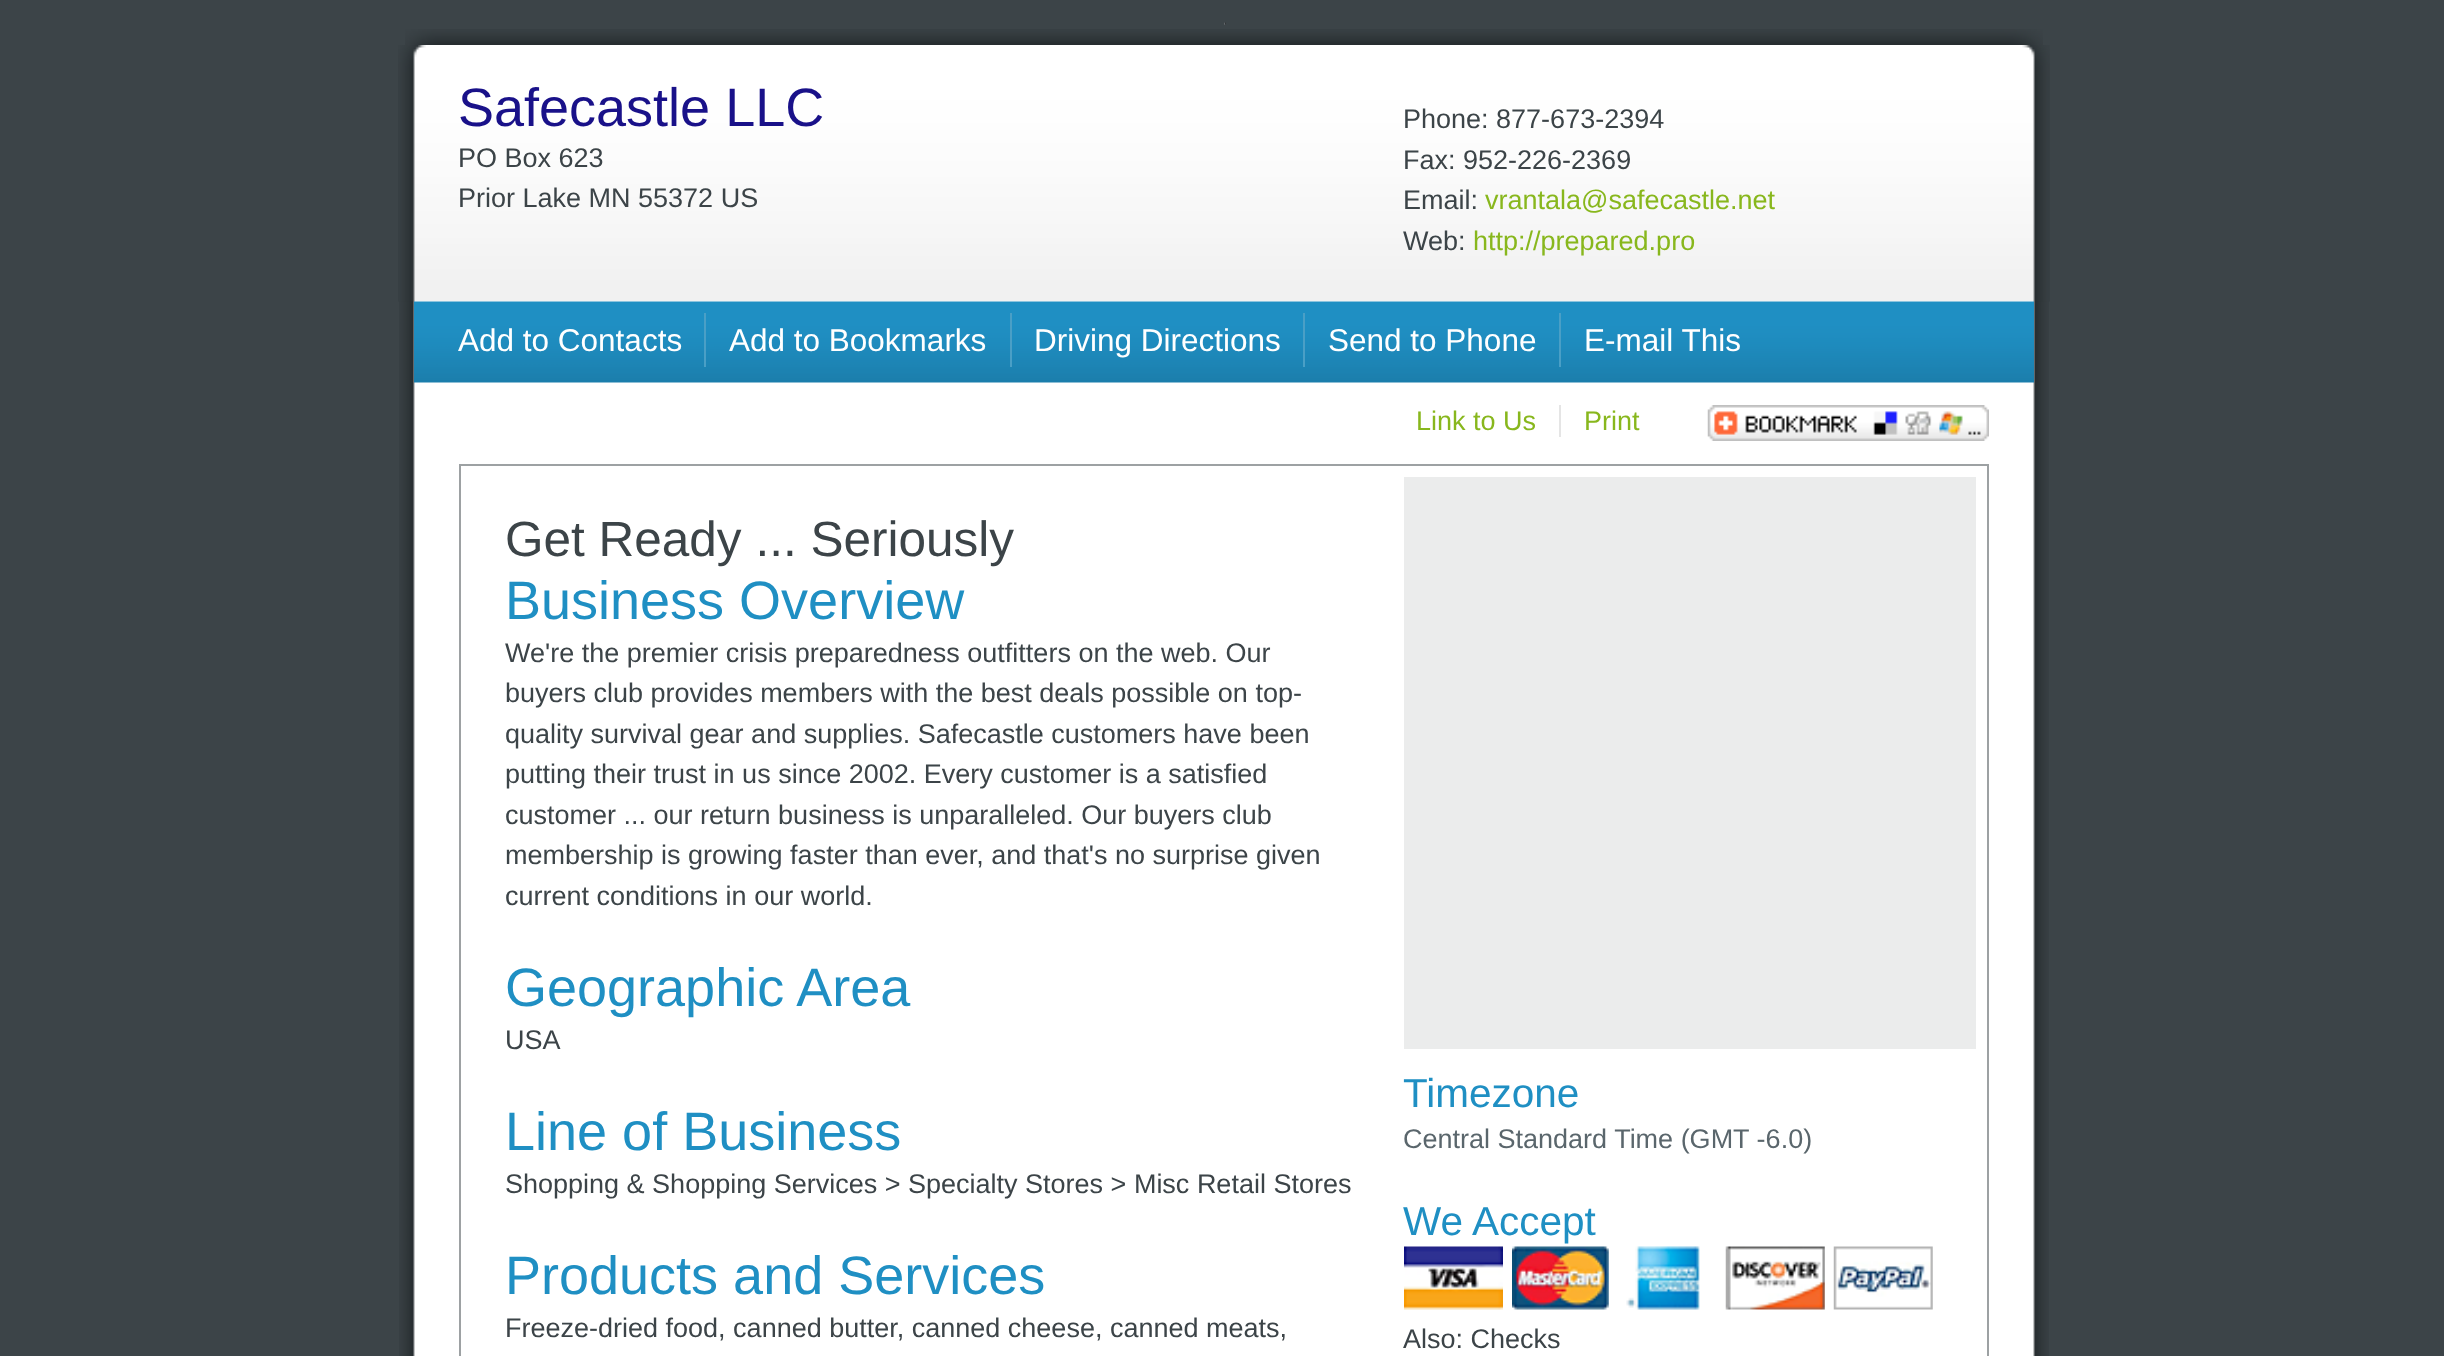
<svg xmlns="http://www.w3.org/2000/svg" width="2444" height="1356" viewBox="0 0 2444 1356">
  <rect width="100%" height="100%" fill="#3c4448"/>
  <image x="1224" y="22" width="2" height="3" href="img/1.png"/>
  <image x="405" y="29" width="1638" height="16" href="img/2.png"/>
  <image x="399" y="301" width="1650" height="1055" href="img/3.png"/>
  <image x="398" y="45" width="1652" height="257" href="img/4.png"/>
  <image x="414" y="301" width="1620" height="82" href="img/5.png"/>
  <path d="M704 313h2v54H704z" fill="#4a9fc6"/>
  <path d="M1010 313h2v54H1010z" fill="#4a9fc6"/>
  <path d="M1303 313h2v54H1303z" fill="#4a9fc6"/>
  <path d="M1559 313h2v54H1559z" fill="#4a9fc6"/>
  <path d="M1559 405h2v32H1559z" fill="#e5e5e5"/>
  <image x="1707" y="405" width="282" height="36" href="img/6.png"/>
  <path d="M460 465h1528v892H460z" fill="none" stroke="#9da1a3" stroke-width="2"/>
  <path d="M1404 477h572v572H1404z" fill="#ebecec"/>
  <image x="1404" y="1246" width="99" height="64" href="img/7.png"/>
  <image x="1512" y="1246" width="97" height="64" href="img/8.png"/>
  <image x="1626" y="1246" width="74" height="64" href="img/9.png"/>
  <image x="1725" y="1246" width="100" height="64" href="img/10.png"/>
  <image x="1833" y="1246" width="100" height="64" href="img/11.png"/>
  <text x="458" y="126" font-family="Liberation Sans" font-size="54" fill="#191189">Safecastle LLC</text>
  <g font-family="Liberation Sans" font-size="27" fill="#3c4448">
    <text x="458" y="167">PO Box 623</text>
    <text x="458" y="207">Prior Lake MN 55372 US</text>
    <text x="1403" y="128">Phone: 877-673-2394</text>
    <text x="1403" y="169">Fax: 952-226-2369</text>
    <text x="1403" y="209">Email:</text>
  </g>
  <text x="1485" y="209" font-family="Liberation Sans" font-size="27" fill="#88b71d">vrantala@safecastle.net</text>
  <text x="1403" y="250" font-family="Liberation Sans" font-size="27" fill="#3c4448">Web:</text>
  <text x="1473" y="250" font-family="Liberation Sans" font-size="27" fill="#88b71d">http://prepared.pro</text>
  <g font-family="Liberation Sans" font-size="31.5" fill="#fff">
    <text x="458" y="351">Add to Contacts</text>
    <text x="729" y="351">Add to Bookmarks</text>
    <text x="1034" y="351">Driving Directions</text>
    <text x="1328" y="351">Send to Phone</text>
    <text x="1584" y="351">E-mail This</text>
  </g>
  <g font-family="Liberation Sans" font-size="27" fill="#88b71d">
    <text x="1416" y="430">Link to Us</text>
    <text x="1584" y="430">Print</text>
  </g>
  <text x="505" y="556" font-family="Liberation Sans" font-size="49.5" fill="#3c4448">Get Ready ... Seriously</text>
  <text x="505" y="619" font-family="Liberation Sans" font-size="54" fill="#1f8fc3">Business Overview</text>
  <g font-family="Liberation Sans" font-size="27" fill="#3c4448">
    <text x="505" y="662">We're the premier crisis preparedness outfitters on the web. Our</text>
    <text x="505" y="702">buyers club provides members with the best deals possible on top-</text>
    <text x="505" y="743">quality survival gear and supplies. Safecastle customers have been</text>
    <text x="505" y="783">putting their trust in us since 2002. Every customer is a satisfied</text>
    <text x="505" y="824">customer ... our return business is unparalleled. Our buyers club</text>
    <text x="505" y="864">membership is growing faster than ever, and that's no surprise given</text>
    <text x="505" y="905">current conditions in our world.</text>
  </g>
  <text x="505" y="1006" font-family="Liberation Sans" font-size="54" fill="#1f8fc3">Geographic Area</text>
  <text x="505" y="1049" font-family="Liberation Sans" font-size="27" fill="#3c4448">USA</text>
  <text x="505" y="1150" font-family="Liberation Sans" font-size="54" fill="#1f8fc3">Line of Business</text>
  <text x="505" y="1193" font-family="Liberation Sans" font-size="27" fill="#3c4448">Shopping &amp; Shopping Services &gt; Specialty Stores &gt; Misc Retail Stores</text>
  <text x="505" y="1294" font-family="Liberation Sans" font-size="54" fill="#1f8fc3">Products and Services</text>
  <text x="505" y="1337" font-family="Liberation Sans" font-size="27" fill="#3c4448">Freeze-dried food, canned butter, canned cheese, canned meats,</text>
  <text x="1403" y="1107" font-family="Liberation Sans" font-size="40.5" fill="#1f8fc3">Timezone</text>
  <text x="1403" y="1148" font-family="Liberation Sans" font-size="27" fill="#5a666c">Central Standard Time (GMT -6.0)</text>
  <text x="1403" y="1235" font-family="Liberation Sans" font-size="40.5" fill="#1f8fc3">We Accept</text>
  <text x="1403" y="1348" font-family="Liberation Sans" font-size="27" fill="#3c4448">Also: Checks</text>
</svg>
